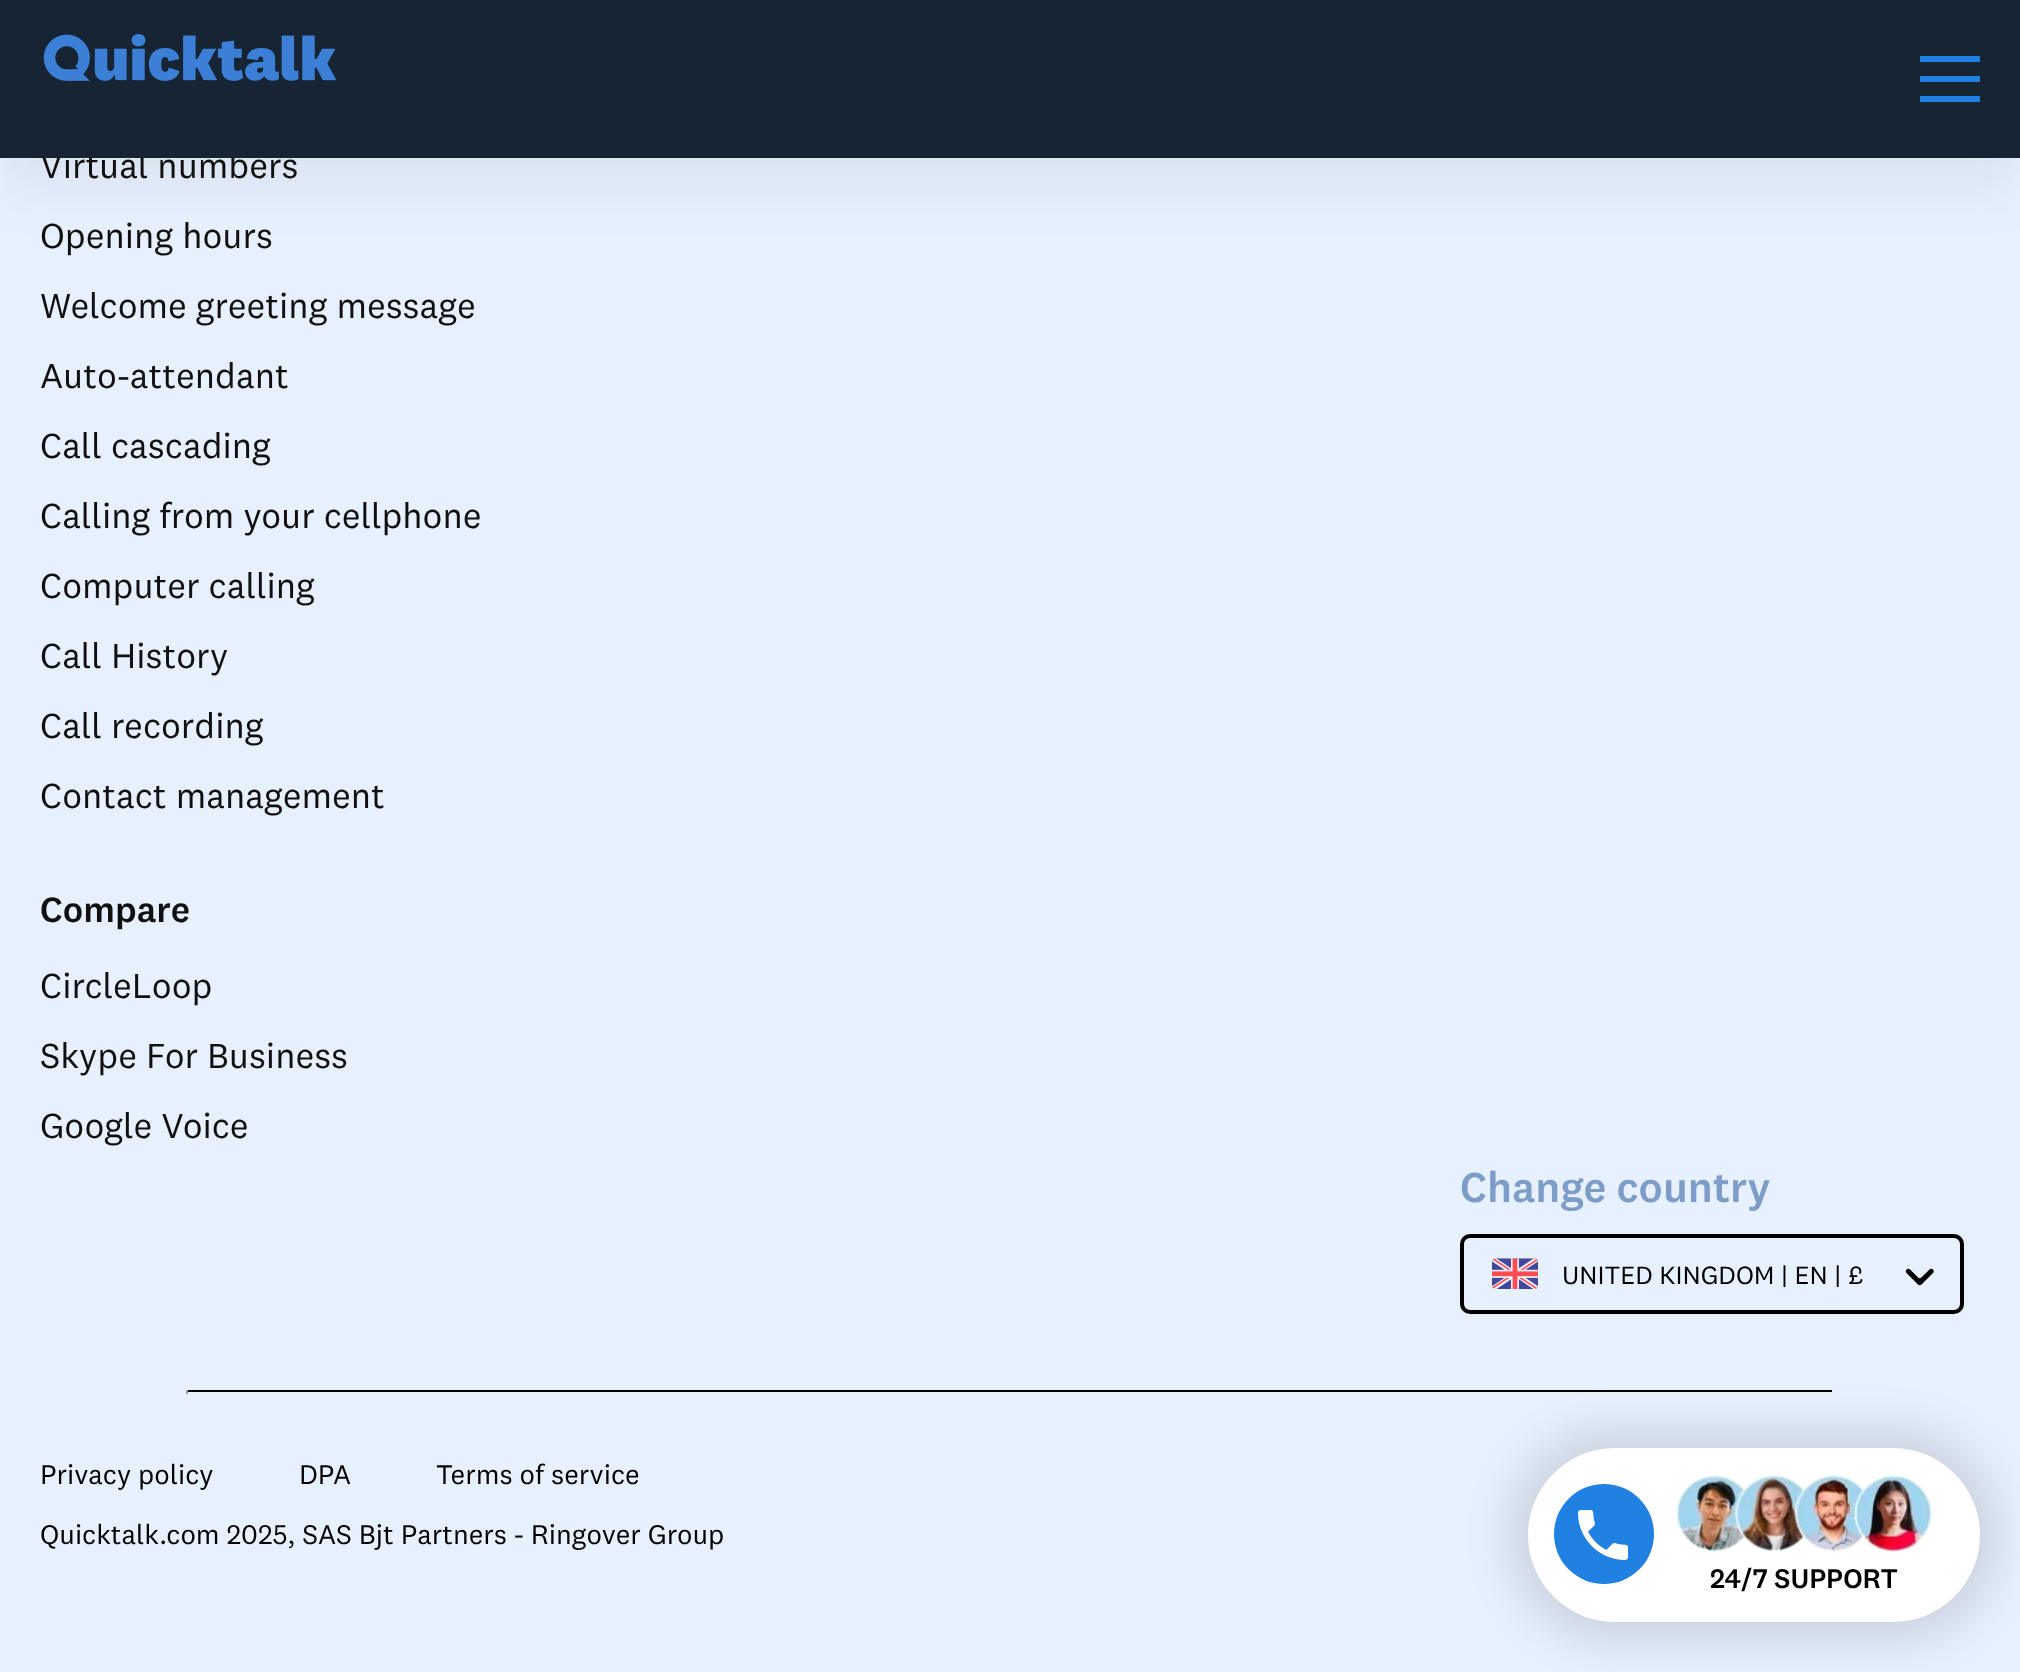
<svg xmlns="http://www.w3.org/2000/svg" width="2020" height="1672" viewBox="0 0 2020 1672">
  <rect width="100%" height="100%" fill="#e6f0fe"/>
  <path d="M0 32h2020v158H0z" fill="#59595914" filter="blur(25px)"/>
  <rect x="1462" y="1236" width="500" height="76" rx="8" fill="none" stroke="#000" stroke-width="4"/>
  <image x="1492" y="1258" width="46" height="31" href="img/2.png"/>
  <image x="1905" y="1268" width="29" height="18" href="img/3.png"/>
  <path d="M186 1390h1648v2H186z" fill="#000"/>
  <path d="M1832 1390h2v4H1832z" fill="#eee"/>
  <path d="M186 1392h1648v2H186z" fill="#eee"/>
  <path d="M186 1390h2v4H186z" fill="#9f9f9f"/>
  <rect x="1508" y="1428" width="492" height="214" rx="107" fill="#5959592e" filter="blur(20px)"/>
  <rect x="1528" y="1448" width="452" height="174" rx="87" fill="#fff"/>
  <circle cx="1604" cy="1534" r="50" fill="#2081e2"/>
  <image x="1578" y="1510" width="50" height="50" href="img/4.png"/>
  <image x="1676" y="1474" width="256" height="78" href="img/5.png"/>
  <text x="40" y="178" font-family="'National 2'" font-size="36" fill="#101010">Virtual numbers</text>
  <path d="M0 0h2020v158H0z" fill="#172433"/>
  <path d="M1920 96h60v6H1920z" fill="#2081e2"/>
  <path d="M1920 56h60v6H1920z" fill="#2081e2"/>
  <path d="M1920 76h60v6H1920z" fill="#2081e2"/>
  <image x="43" y="34" width="294" height="47" href="img/1.png"/>
  <g font-family="'National 2'" font-size="36" fill="#101010">
    <text x="40" y="248">Opening hours</text>
    <text x="40" y="318">Welcome greeting message</text>
    <text x="40" y="388">Auto-attendant</text>
    <text x="40" y="458">Call cascading</text>
    <text x="40" y="528">Calling from your cellphone</text>
    <text x="40" y="598">Computer calling</text>
    <text x="40" y="668">Call History</text>
    <text x="40" y="738">Call recording</text>
    <text x="40" y="808">Contact management</text>
  </g>
  <text x="40" y="922" font-family="'National 2'" font-size="36.5" font-weight="500" fill="#101010">Compare</text>
  <g font-family="'National 2'" font-size="36" fill="#101010">
    <text x="40" y="998">CircleLoop</text>
    <text x="40" y="1068">Skype For Business</text>
    <text x="40" y="1138">Google Voice</text>
  </g>
  <text x="1460" y="1202" font-family="'National 2'" font-size="43.25" font-weight="500" fill="#7d9cc7">Change country</text>
  <text x="1562" y="1284" font-family="'National 2'" font-size="26" fill="#000">UNITED KINGDOM | EN | £</text>
  <g font-family="'National 2'" font-size="28" fill="#000">
    <text x="40" y="1484">Privacy policy</text>
    <text x="299" y="1484">DPA</text>
    <text x="436" y="1484">Terms of service</text>
    <text x="40" y="1544">Quicktalk.com 2025, SAS Bjt Partners - Ringover Group</text>
  </g>
  <text x="1710" y="1588" font-family="'National 2'" font-size="28" font-weight="500" fill="#000">24/7 SUPPORT</text>
</svg>
